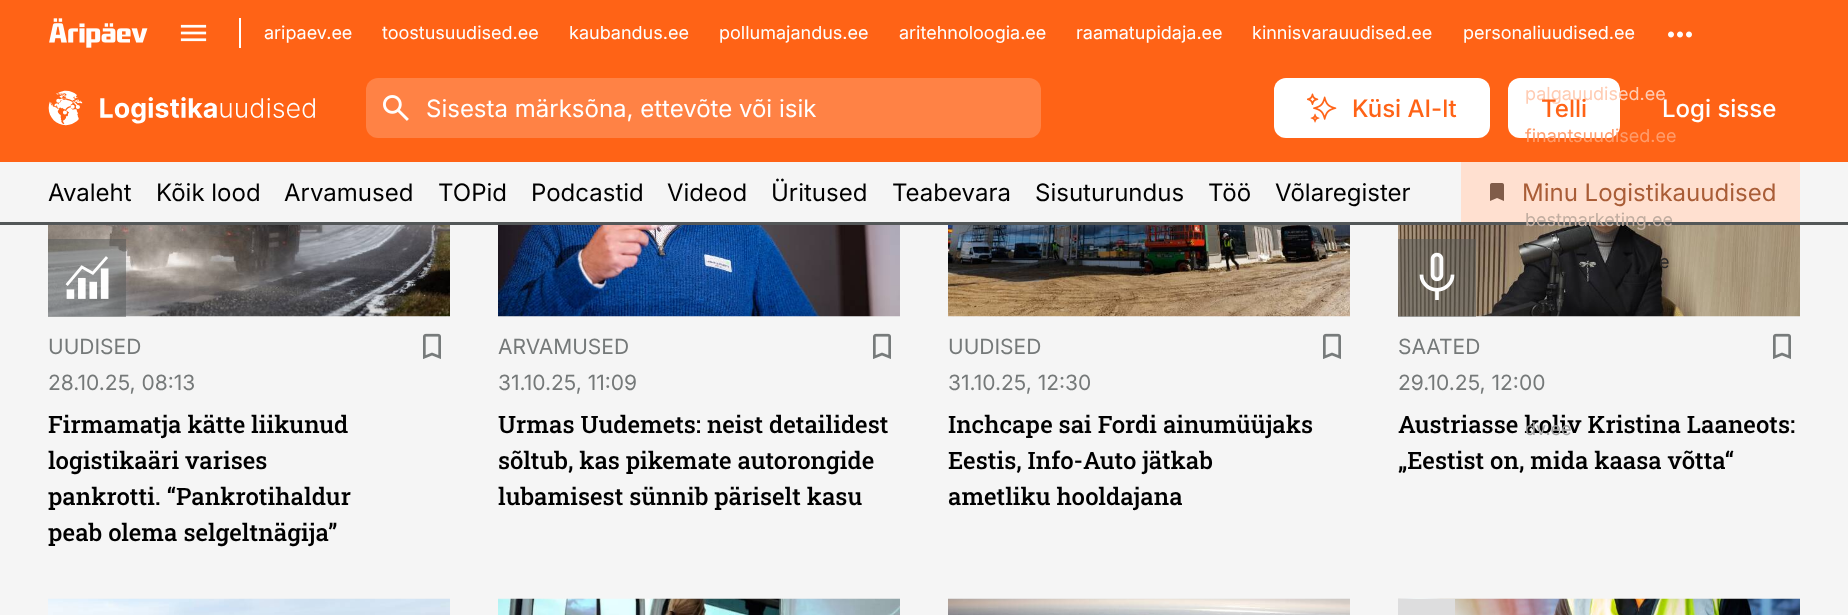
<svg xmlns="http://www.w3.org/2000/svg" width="1848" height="615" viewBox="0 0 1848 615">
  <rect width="100%" height="100%" fill="#f5f5f5"/>
  <path d="M0 0h1848v162H0z" fill="#ff6316"/>
  <path d="M239 18h2v30H239z" fill="#fff"/>
  <image x="49" y="18" width="99" height="30" href="img/1.png"/>
  <image x="180" y="24" width="27" height="18" href="img/2.png"/>
  <image x="1668" y="31" width="24" height="7" href="img/3.png"/>
  <image x="48" y="90" width="267" height="36" href="img/4.png"/>
  <rect x="366" y="78" width="675" height="60" rx="12" fill="#ff8245"/>
  <image x="383" y="95" width="26" height="26" href="img/5.png"/>
  <rect x="1274" y="78" width="216" height="60" rx="12" fill="#fff"/>
  <image x="1307" y="93" width="30" height="30" href="img/6.png"/>
  <rect x="1508" y="78" width="112" height="60" rx="12" fill="#fff"/>
  <path d="M0 222h1848v3H0z" fill="#535758"/>
  <path d="M1461 162h339v60H1461z" fill="#ffe0d0"/>
  <image x="1490" y="183" width="14" height="18" href="img/7.png"/>
  <image x="48" y="225" width="402" height="92" href="img/8.png"/>
  <path d="M48 239h78v78H48z" fill="#53575880"/>
  <image x="65" y="256" width="44" height="43" href="img/9.png"/>
  <image x="423" y="333" width="18" height="26" href="img/10.png"/>
  <image x="498" y="225" width="402" height="92" href="img/11.png"/>
  <image x="873" y="333" width="18" height="26" href="img/10.png"/>
  <image x="948" y="225" width="402" height="92" href="img/12.png"/>
  <image x="1323" y="333" width="18" height="26" href="img/10.png"/>
  <image x="1398" y="225" width="402" height="92" href="img/13.png"/>
  <path d="M1398 239h78v78H1398z" fill="#53575880"/>
  <image x="1419" y="252" width="36" height="48" href="img/14.png"/>
  <image x="1773" y="333" width="18" height="26" href="img/10.png"/>
  <image x="48" y="598" width="402" height="17" href="img/15.png"/>
  <image x="498" y="598" width="402" height="17" href="img/16.png"/>
  <image x="948" y="598" width="402" height="17" href="img/17.png"/>
  <image x="1398" y="598" width="402" height="17" href="img/18.png"/>
  <path d="M1398 599h57v16H1398z" fill="#ddddde"/>
  <g font-family="Inter" font-size="18" fill="#fff">
    <text x="264" y="39">aripaev.ee</text>
    <text x="382" y="39">toostusuudised.ee</text>
    <text x="569" y="39">kaubandus.ee</text>
    <text x="719" y="39">pollumajandus.ee</text>
    <text x="899" y="39">aritehnoloogia.ee</text>
    <text x="1076" y="39">raamatupidaja.ee</text>
    <text x="1252" y="39">kinnisvarauudised.ee</text>
    <text x="1463" y="39">personaliuudised.ee</text>
  </g>
  <text x="1525" y="100" font-family="Inter" font-size="18" fill="#ffccb3">palgauudised.ee</text>
  <text x="1525" y="142" font-family="Inter" font-size="18" fill="#ff9c6b">finantsuudised.ee</text>
  <text x="1525" y="226" font-family="Inter" font-size="18" fill="#c1ada0">bestmarketing.ee</text>
  <text x="1659" y="268" font-family="Inter" font-size="18" fill="#2a2828">e</text>
  <text x="426" y="117" font-family="Inter" font-size="24" fill="#fff">Sisesta märksõna, ettevõte või isik</text>
  <g font-family="Inter" font-size="24" font-weight="500" fill="#ff6316">
    <text x="1352" y="117">Küsi AI-lt</text>
    <text x="1541" y="117">Telli</text>
  </g>
  <text x="1662" y="117" font-family="Inter" font-size="24" font-weight="500" fill="#fff">Logi sisse</text>
  <g font-family="Inter" font-size="24" fill="#000">
    <text x="48" y="201">Avaleht</text>
    <text x="156" y="201">Kõik lood</text>
    <text x="284" y="201">Arvamused</text>
    <text x="438" y="201">TOPid</text>
    <text x="531" y="201">Podcastid</text>
    <text x="667" y="201">Videod</text>
    <text x="771" y="201">Üritused</text>
    <text x="892" y="201">Teabevara</text>
    <text x="1035" y="201">Sisuturundus</text>
    <text x="1208" y="201">Töö</text>
    <text x="1275" y="201">Võlaregister</text>
  </g>
  <text x="1522" y="201" font-family="Inter" font-size="24" fill="#a95d37">Minu Logistikauudised</text>
  <g font-family="Inter" font-size="21" fill="#757979">
    <text x="48" y="354">UUDISED</text>
    <text x="48" y="390">28.10.25, 08:13</text>
  </g>
  <g font-family="Roboto Slab" font-size="24" font-weight="500" fill="#000">
    <text x="48" y="433">Firmamatja kätte liikunud</text>
    <text x="48" y="469">logistikaäri varises</text>
    <text x="48" y="505">pankrotti. “Pankrotihaldur</text>
    <text x="48" y="541">peab olema selgeltnägija”</text>
  </g>
  <g font-family="Inter" font-size="21" fill="#757979">
    <text x="498" y="354">ARVAMUSED</text>
    <text x="498" y="390">31.10.25, 11:09</text>
  </g>
  <g font-family="Roboto Slab" font-size="24" font-weight="500" fill="#000">
    <text x="498" y="433">Urmas Uudemets: neist detailidest</text>
    <text x="498" y="469">sõltub, kas pikemate autorongide</text>
    <text x="498" y="505">lubamisest sünnib päriselt kasu</text>
  </g>
  <g font-family="Inter" font-size="21" fill="#757979">
    <text x="948" y="354">UUDISED</text>
    <text x="948" y="390">31.10.25, 12:30</text>
  </g>
  <g font-family="Roboto Slab" font-size="24" font-weight="500" fill="#000">
    <text x="948" y="433">Inchcape sai Fordi ainumüüjaks</text>
    <text x="948" y="469">Eestis, Info-Auto jätkab</text>
    <text x="948" y="505">ametliku hooldajana</text>
  </g>
  <g font-family="Inter" font-size="21" fill="#757979">
    <text x="1398" y="354">SAATED</text>
    <text x="1398" y="390">29.10.25, 12:00</text>
  </g>
  <text x="1398" y="433" font-family="Roboto Slab" font-size="24" font-weight="500" fill="#000">Austriasse koliv Kristina Laaneots:</text>
  <text x="1525" y="435" font-family="Inter" font-size="18" fill="#a2a2a2">dv.ee</text>
  <text x="1398" y="469" font-family="Roboto Slab" font-size="24" font-weight="500" fill="#000">„Eestist on, mida kaasa võtta“</text>
</svg>
